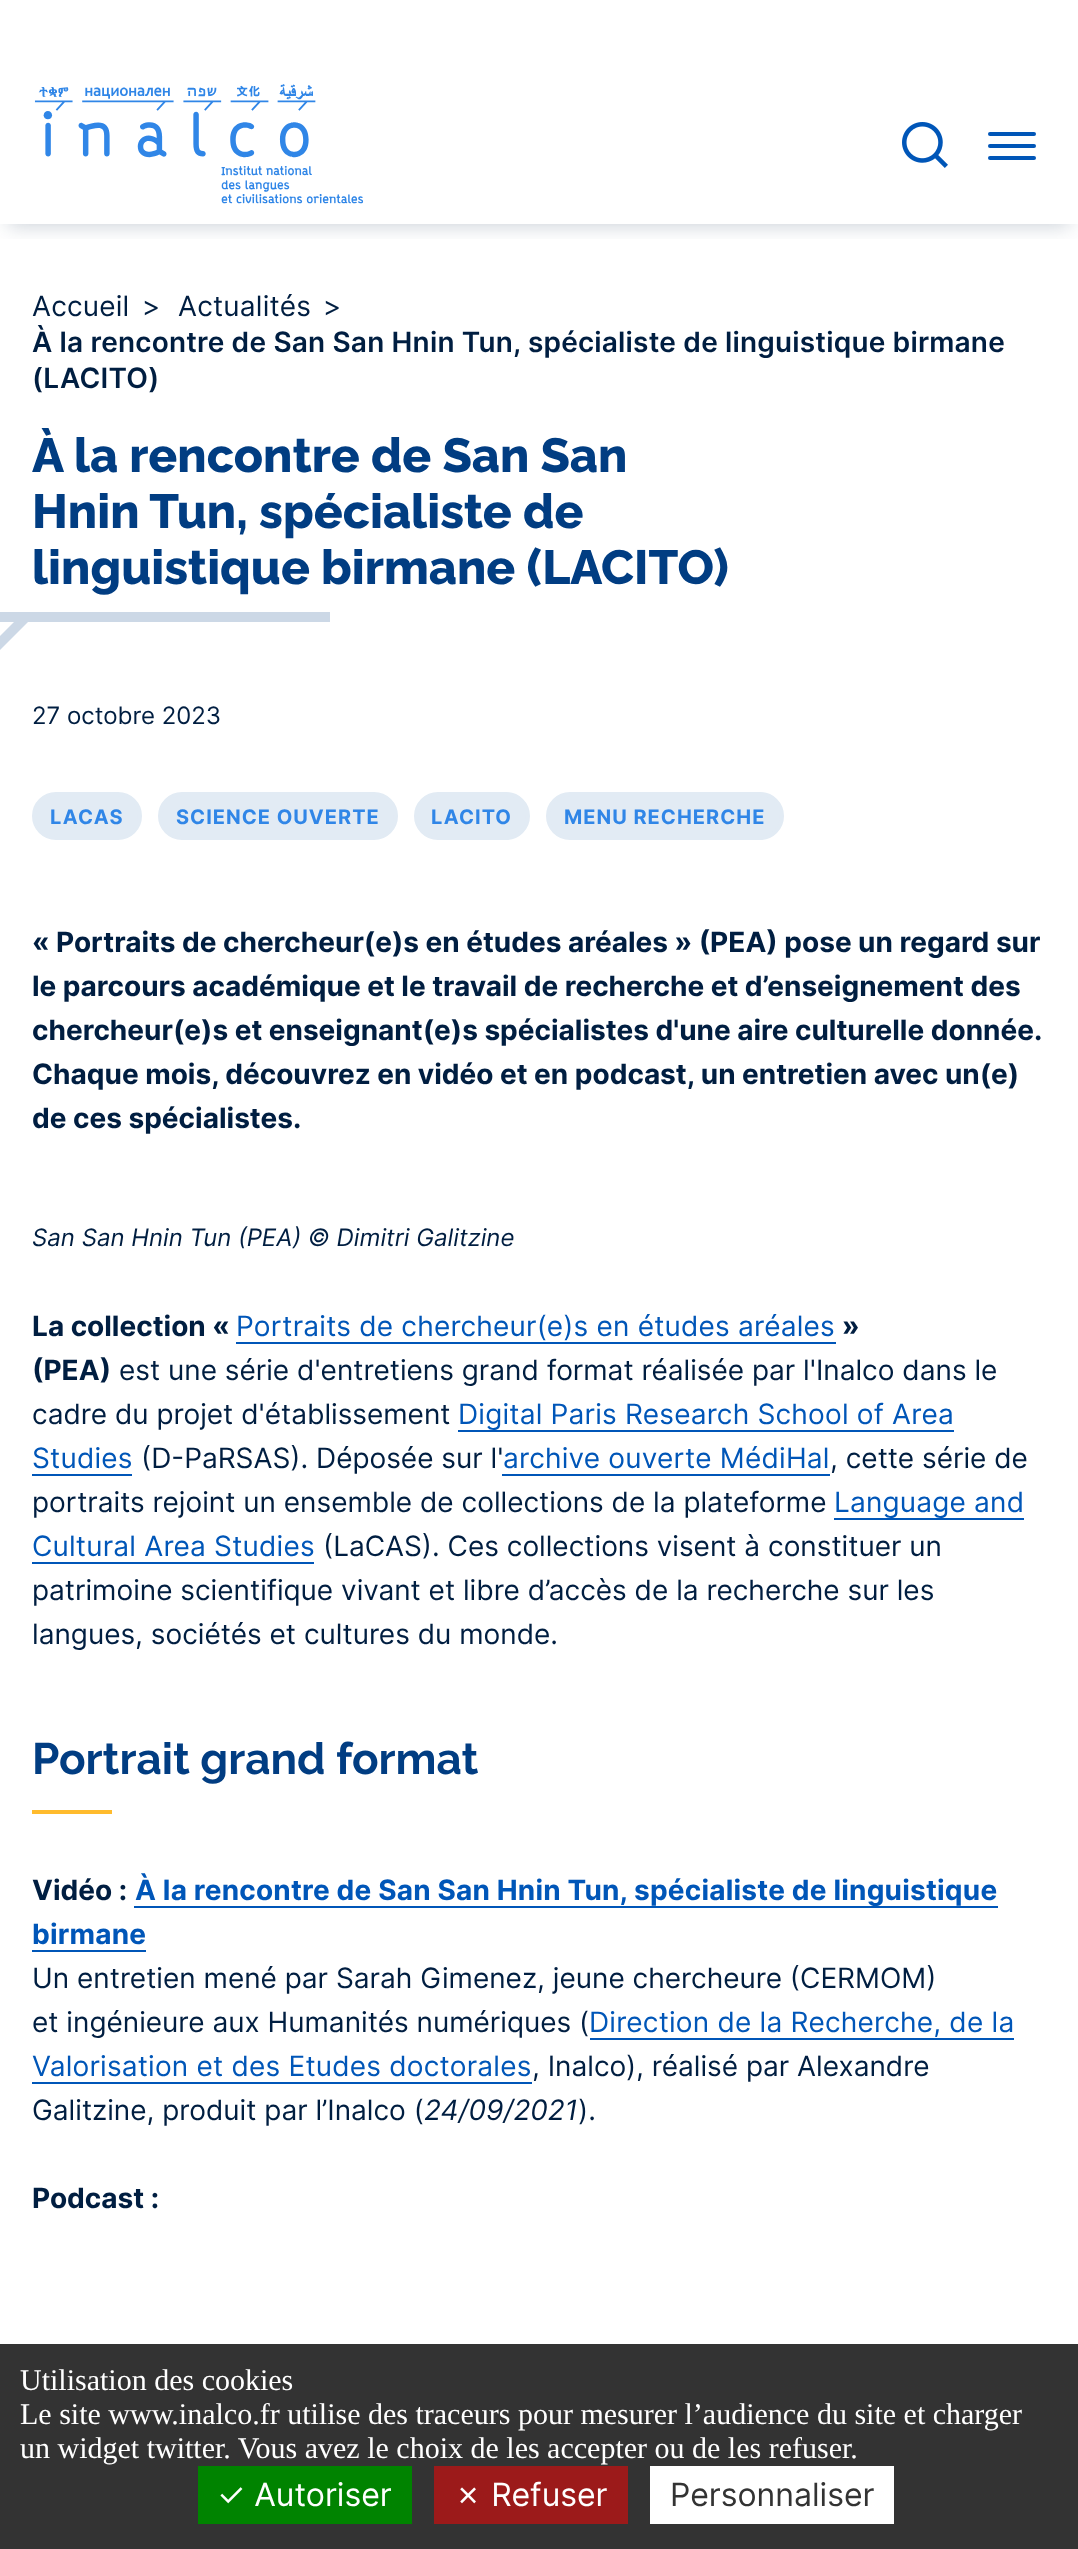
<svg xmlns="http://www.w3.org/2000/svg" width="1078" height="2549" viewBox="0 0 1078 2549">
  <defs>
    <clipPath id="clip1"><path d="M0 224h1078v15H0z"/></clipPath>
  </defs>
  <rect width="100%" height="100%" fill="#fff"/>
  <g clip-path="url(#clip1)">
    <path d="M8 82h1062v144H8z" fill="#001e4133" filter="blur(10px)"/>
  </g>
  <image x="34" y="84" width="330" height="120" href="img/1.png"/>
  <image x="902" y="122" width="46" height="46" href="img/2.png"/>
  <rect x="988" y="132" width="48" height="4" rx="2" fill="#0056b8"/>
  <rect x="988" y="144" width="48" height="4" rx="2" fill="#0056b8"/>
  <rect x="988" y="156" width="48" height="4" rx="2" fill="#0056b8"/>
  <path d="M0 612h330v10H0z" fill="#ccd8e6"/>
  <path d="M28 622L-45 695L-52 688L21 615Z" fill="#ccd8e6"/>
  <rect x="34" y="794" width="106" height="44" rx="22" fill="#e2ebf4" stroke="#e2ebf4" stroke-width="4"/>
  <rect x="160" y="794" width="236" height="44" rx="22" fill="#e2ebf4" stroke="#e2ebf4" stroke-width="4"/>
  <rect x="416" y="794" width="112" height="44" rx="22" fill="#e2ebf4" stroke="#e2ebf4" stroke-width="4"/>
  <rect x="548" y="794" width="234" height="44" rx="22" fill="#e2ebf4" stroke="#e2ebf4" stroke-width="4"/>
  <path d="M236 1342h600v2H236z" fill="#0056b8"/>
  <path d="M458 1430h496v2H458z" fill="#0056b8"/>
  <path d="M32 1474h100v2H32z" fill="#0056b8"/>
  <path d="M502 1474h328v2H502z" fill="#0056b8"/>
  <path d="M834 1518h190v2H834z" fill="#0056b8"/>
  <path d="M32 1562h282v2H32z" fill="#0056b8"/>
  <path d="M32 1810h80v4H32z" fill="#ffbb2d"/>
  <path d="M134 1906h864v2H134z" fill="#0056b8"/>
  <path d="M32 1950h114v2H32z" fill="#0056b8"/>
  <path d="M590 2038h424v2H590z" fill="#0056b8"/>
  <path d="M32 2082h500v2H32z" fill="#0056b8"/>
  <path d="M0 2344h1078v205H0z" fill="#333"/>
  <path d="M198 2466h214v58H198z" fill="#008300"/>
  <path d="M434 2466h194v58H434z" fill="#9c1a1a"/>
  <path d="M650 2466h244v58H650z" fill="#fff"/>
  <text x="32" y="316" font-family="Inter" font-size="28" letter-spacing="0.2" fill="#001e41">Accueil</text>
  <text x="142" y="316" font-family="Inter" font-size="28" fill="#001e41">&gt;</text>
  <text x="178" y="316" font-family="Inter" font-size="28" letter-spacing="0.2" fill="#001e41">Actualités</text>
  <text x="323" y="316" font-family="Inter" font-size="28" fill="#001e41">&gt;</text>
  <g font-family="Inter" font-size="28" font-weight="600" letter-spacing="0.2" fill="#001e41">
    <text x="32" y="352">À la rencontre de San San Hnin Tun, spécialiste de linguistique birmane</text>
    <text x="32" y="388">(LACITO)</text>
  </g>
  <g font-family="Raleway" font-size="48" font-weight="800" fill="#013d82">
    <text x="32" y="472">À la rencontre de San San</text>
    <text x="32" y="528">Hnin Tun, spécialiste de</text>
    <text x="32" y="584">linguistique birmane (LACITO)</text>
  </g>
  <text x="32" y="724" font-family="Inter" font-size="24" fill="#001e41">27 octobre 2023</text>
  <g font-family="Inter" font-size="20" font-weight="bold" letter-spacing="1" fill="#3086e7">
    <text x="50" y="824">LACAS</text>
    <text x="176" y="824">SCIENCE OUVERTE</text>
    <text x="431" y="824">LACITO</text>
    <text x="564" y="824">MENU RECHERCHE</text>
  </g>
  <g font-family="Inter" font-size="28" font-weight="bold" fill="#001e41">
    <text x="32" y="952">« Portraits de chercheur(e)s en études aréales » (PEA) pose un regard sur</text>
    <text x="32" y="996">le parcours académique et le travail de recherche et d’enseignement des</text>
    <text x="32" y="1040">chercheur(e)s et enseignant(e)s spécialistes d'une aire culturelle donnée.</text>
    <text x="32" y="1084">Chaque mois, découvrez en vidéo et en podcast, un entretien avec un(e)</text>
    <text x="32" y="1128">de ces spécialistes.</text>
  </g>
  <text x="32" y="1246" font-family="Inter" font-size="24" font-style="italic" fill="#001e41">San San Hnin Tun (PEA) © Dimitri Galitzine</text>
  <text x="32" y="1336" font-family="Inter" font-size="28" font-weight="bold" fill="#001e41">La collection «</text>
  <text x="236" y="1336" font-family="Inter" font-size="28" letter-spacing="0.2" fill="#0056b8">Portraits de chercheur(e)s en études aréales</text>
  <g font-family="Inter" font-size="28" font-weight="bold" fill="#001e41">
    <text x="842" y="1336">»</text>
    <text x="32" y="1380">(PEA)</text>
  </g>
  <g font-family="Inter" font-size="28" fill="#001e41">
    <text x="119" y="1380">est une série d'entretiens grand format réalisée par l'Inalco dans le</text>
    <text x="32" y="1424">cadre du projet d'établissement</text>
  </g>
  <g font-family="Inter" font-size="28" letter-spacing="0.2" fill="#0056b8">
    <text x="458" y="1424">Digital Paris Research School of Area</text>
    <text x="32" y="1468">Studies</text>
  </g>
  <text x="141" y="1468" font-family="Inter" font-size="28" fill="#001e41">(D-PaRSAS). Déposée sur l'</text>
  <text x="503" y="1468" font-family="Inter" font-size="28" letter-spacing="0.2" fill="#0056b8">archive ouverte MédiHal</text>
  <g font-family="Inter" font-size="28" fill="#001e41">
    <text x="830" y="1468">, cette série de</text>
    <text x="32" y="1512">portraits rejoint un ensemble de collections de la plateforme</text>
  </g>
  <g font-family="Inter" font-size="28" letter-spacing="0.2" fill="#0056b8">
    <text x="834" y="1512">Language and</text>
    <text x="32" y="1556">Cultural Area Studies</text>
  </g>
  <g font-family="Inter" font-size="28" fill="#001e41">
    <text x="323" y="1556">(LaCAS). Ces collections visent à constituer un</text>
    <text x="32" y="1600">patrimoine scientifique vivant et libre d’accès de la recherche sur les</text>
    <text x="32" y="1644">langues, sociétés et cultures du monde.</text>
  </g>
  <text x="32" y="1774" font-family="Raleway" font-size="44" font-weight="bold" fill="#013d82">Portrait grand format</text>
  <text x="32" y="1900" font-family="Inter" font-size="28" font-weight="bold" fill="#001e41">Vidéo :</text>
  <g font-family="Inter" font-size="28" font-weight="bold" letter-spacing="0.2" fill="#0056b8">
    <text x="135" y="1900">À la rencontre de San San Hnin Tun, spécialiste de linguistique</text>
    <text x="32" y="1944">birmane</text>
  </g>
  <g font-family="Inter" font-size="28" fill="#001e41">
    <text x="32" y="1988">Un entretien mené par Sarah Gimenez, jeune chercheure (CERMOM)</text>
    <text x="32" y="2032">et ingénieure aux Humanités numériques (</text>
  </g>
  <g font-family="Inter" font-size="28" letter-spacing="0.2" fill="#0056b8">
    <text x="589" y="2032">Direction de la Recherche, de la</text>
    <text x="32" y="2076">Valorisation et des Etudes doctorales</text>
  </g>
  <g font-family="Inter" font-size="28" fill="#001e41">
    <text x="532" y="2076">, Inalco), réalisé par Alexandre</text>
    <text x="32" y="2120">Galitzine, produit par l’Inalco (</text>
  </g>
  <text x="424" y="2120" font-family="Inter" font-size="28" font-style="italic" fill="#001e41">24/09/2021</text>
  <text x="578" y="2120" font-family="Inter" font-size="28" fill="#001e41">).</text>
  <text x="32" y="2208" font-family="Inter" font-size="28" font-weight="bold" fill="#001e41">Podcast :</text>
  <g font-family="Liberation Serif" font-size="30" fill="#fff">
    <text x="20" y="2390">Utilisation des cookies</text>
    <text x="20" y="2424">Le site www.inalco.fr utilise des traceurs pour mesurer l’audience du site et charger</text>
    <text x="20" y="2458">un widget twitter. Vous avez le choix de les accepter ou de les refuser.</text>
  </g>
  <g font-family="Inter" font-size="32" fill="#fff">
    <text x="217" y="2506">✓ Autoriser</text>
    <text x="454" y="2506">✗ Refuser</text>
  </g>
  <text x="670" y="2506" font-family="Inter" font-size="32" fill="#333">Personnaliser</text>
</svg>
